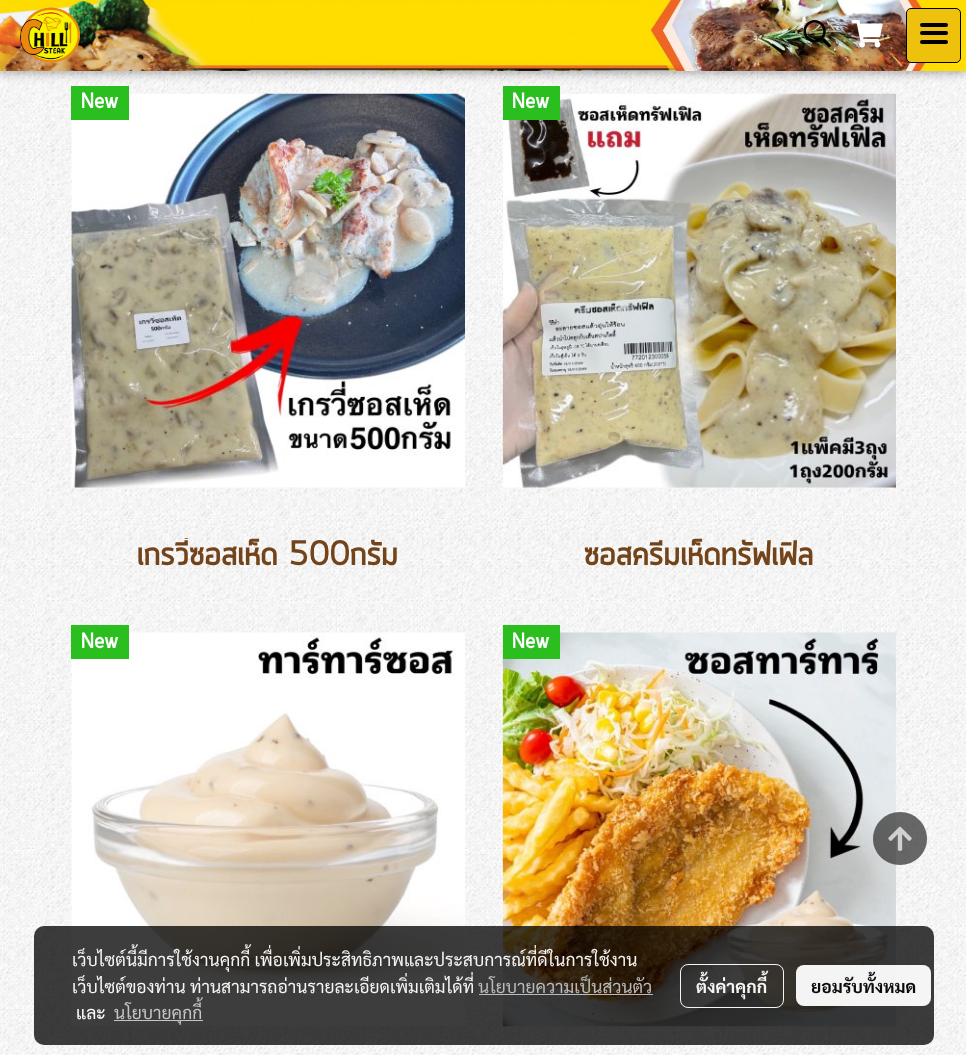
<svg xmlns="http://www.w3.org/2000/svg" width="966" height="1055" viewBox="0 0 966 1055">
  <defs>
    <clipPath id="clip1"><path d="M90 538h356v37H90z"/></clipPath>
  </defs>
  <rect width="100%" height="100%" fill="#fff"/>
  <image x="0" y="71" width="966" height="984" href="img/1.png"/>
  <image x="71" y="93" width="394" height="395" href="img/6.png"/>
  <path d="M71 86h58v34H71z" fill="#2bbe1f"/>
  <image x="502" y="93" width="394" height="395" href="img/7.png"/>
  <path d="M503 86h57v34H503z" fill="#2bbe1f"/>
  <path d="M0 3h966v71H0z" fill="#0000001f" filter="blur(6px)"/>
  <path d="M0 3h966v71H0z" fill="#00000029" filter="blur(3px)"/>
  <image x="0" y="0" width="966" height="71" href="img/2.png"/>
  <image x="20" y="7" width="60" height="56" href="img/3.png"/>
  <image x="803" y="20" width="28" height="28" href="img/4.png"/>
  <image x="851" y="20" width="32" height="28" href="img/5.png"/>
  <rect x="906.5" y="8.5" width="54" height="54" rx="4.5" fill="#eec20c" stroke="#000"/>
  <rect x="920" y="31" width="28" height="4" rx="2" fill="#000"/>
  <rect x="920" y="23" width="28" height="4" rx="2" fill="#000"/>
  <rect x="920" y="40" width="28" height="4" rx="2" fill="#000"/>
  <image x="71" y="632" width="394" height="395" href="img/8.png"/>
  <path d="M71 625h58v34H71z" fill="#2bbe1f"/>
  <image x="502" y="632" width="394" height="395" href="img/9.png"/>
  <path d="M503 625h57v34H503z" fill="#2bbe1f"/>
  <path d="M900 812C885 812 873 824 873 839C873 853 885 865 900 865C915 865 927 853 927 839C927 824 915 812 900 812Z" fill="#2b2a2ab3"/>
  <image x="888" y="826" width="24" height="25" href="img/10.png"/>
  <rect x="34" y="926" width="900" height="119" rx="10" fill="#000000c2"/>
  <path d="M479 994h174v1H479z" fill="#c2c2c2f2"/>
  <path d="M114 1020h89v1H114z" fill="#c5c5c5"/>
  <rect x="680.5" y="964.5" width="103" height="43" rx="7.5" fill="none" stroke="#fffffff2"/>
  <rect x="796" y="965" width="135" height="41" rx="8" fill="#fffffff2"/>
  <text x="81" y="108" font-family="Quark" font-size="22" font-weight="bold" fill="#fff">New</text>
  <g clip-path="url(#clip1)">
    <text x="137" y="565" font-family="Quark" font-size="35" font-weight="bold" fill="#734319">เกรวี่ซอสเห็ด 500กรัม</text>
  </g>
  <text x="512" y="108" font-family="Quark" font-size="22" font-weight="bold" fill="#fff">New</text>
  <text x="584" y="565" font-family="Quark" font-size="35" font-weight="bold" fill="#734319">ซอสครีมเห็ดทรัฟเฟิล</text>
  <g font-family="Quark" font-size="22" font-weight="bold" fill="#fff">
    <text x="81" y="648">New</text>
    <text x="512" y="648">New</text>
  </g>
  <g font-family="Sarabun" font-size="17.5" fill="#f5f5f4">
    <text x="72" y="966">เว็บไซต์นี้มีการใช้งานคุกกี้ เพื่อเพิ่มประสิทธิภาพและประสบการณ์ที่ดีในการใช้งาน</text>
    <text x="72" y="993">เว็บไซต์ของท่าน ท่านสามารถอ่านรายละเอียดเพิ่มเติมได้ที่</text>
  </g>
  <text x="478" y="993" font-family="Sarabun" font-size="17.5" fill="#bbbaba">นโยบายความเป็นส่วนตัว</text>
  <text x="76" y="1019" font-family="Sarabun" font-size="17.5" fill="#fff">และ</text>
  <text x="114" y="1019" font-family="Sarabun" font-size="17.5" fill="#c5c5c5">นโยบายคุกกี้</text>
  <text x="696" y="993" font-family="Sarabun" font-size="17.5" font-weight="bold" fill="#f5f5f4">ตั้งค่าคุกกี้</text>
  <text x="811" y="993" font-family="Sarabun" font-size="17.5" font-weight="bold" fill="#0c0c0c">ยอมรับทั้งหมด</text>
</svg>
